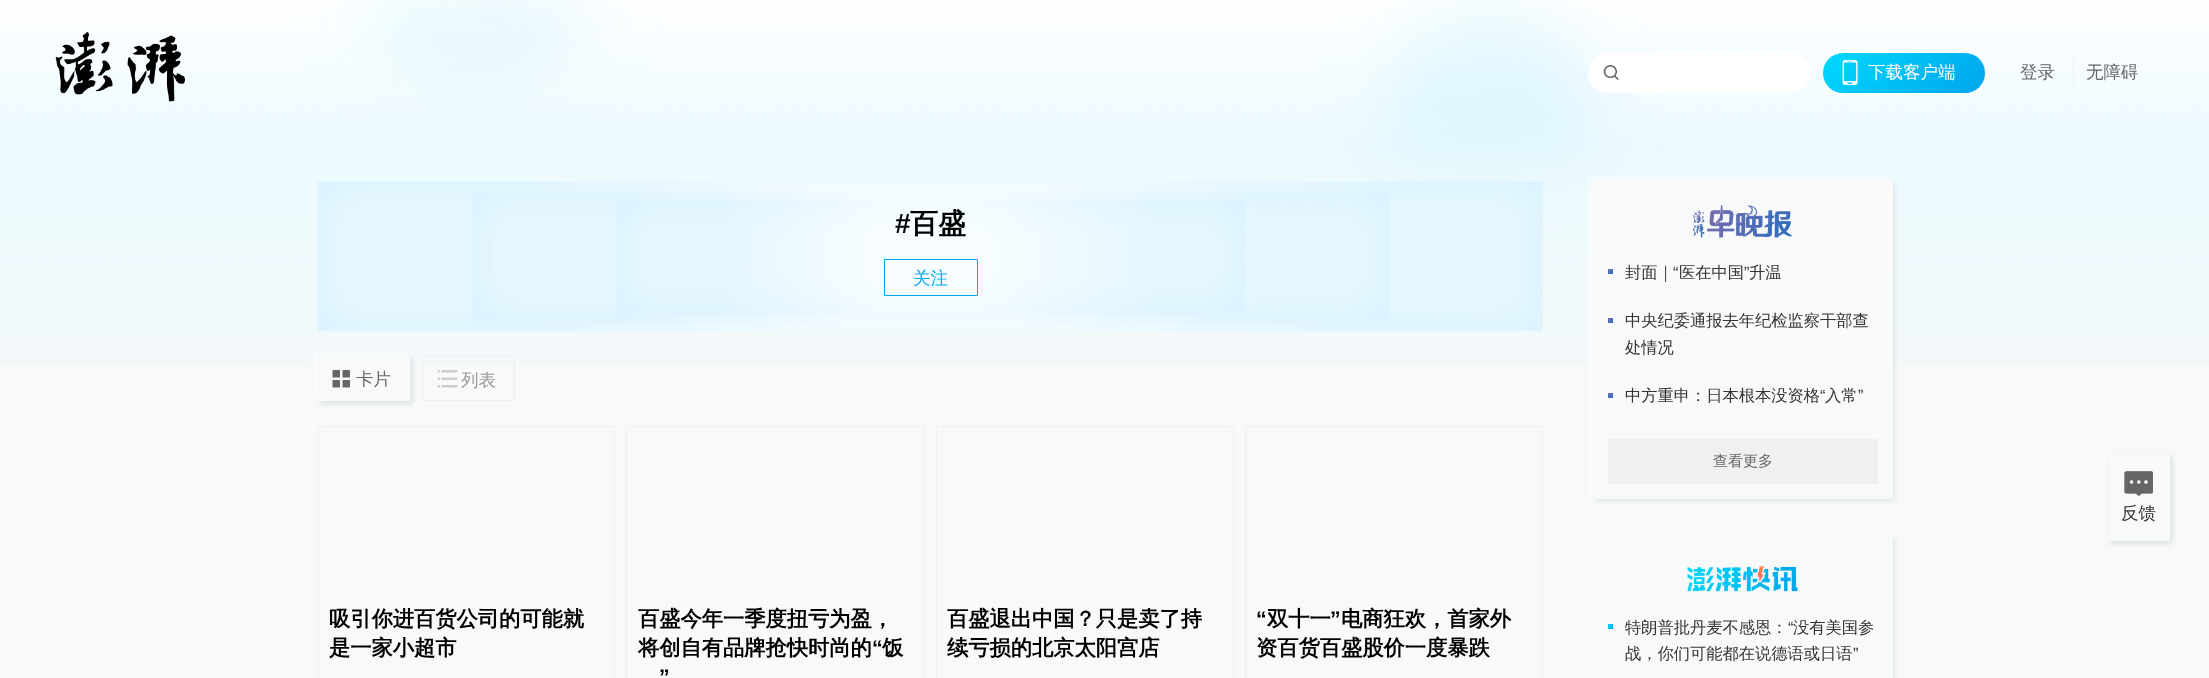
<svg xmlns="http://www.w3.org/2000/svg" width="2209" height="678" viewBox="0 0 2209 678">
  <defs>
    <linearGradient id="g1" gradientUnits="userSpaceOnUse" x1="1853" y1="22" x2="1954" y2="123"><stop offset="0" stop-color="#00d9ff"/><stop offset="1" stop-color="#00a5eb"/></linearGradient>
    <linearGradient id="g2" gradientUnits="userSpaceOnUse" x1="1613" y1="274" x2="1608" y2="269"><stop offset="0" stop-color="#296cbe"/><stop offset="1" stop-color="#7a6eaf"/></linearGradient>
    <linearGradient id="g3" gradientUnits="userSpaceOnUse" x1="1613" y1="323" x2="1608" y2="318"><stop offset="0" stop-color="#296cbe"/><stop offset="1" stop-color="#7a6eaf"/></linearGradient>
    <linearGradient id="g4" gradientUnits="userSpaceOnUse" x1="1613" y1="398" x2="1608" y2="393"><stop offset="0" stop-color="#296cbe"/><stop offset="1" stop-color="#7a6eaf"/></linearGradient>
    <linearGradient id="g5" gradientUnits="userSpaceOnUse" x1="1608" y1="624" x2="1613" y2="629"><stop offset="0" stop-color="#00d9ff"/><stop offset="1" stop-color="#00a5eb"/></linearGradient>
  </defs>
  <rect width="100%" height="100%" fill="#f8f9f9"/>
  <image x="0" y="0" width="2209" height="364" href="img/1.png"/>
  <image x="55" y="32" width="130" height="70" href="img/2.png"/>
  <rect x="1588" y="53" width="222" height="40" rx="20" fill="#fff"/>
  <image x="1603" y="65" width="16" height="15" href="img/3.png"/>
  <rect x="1823" y="53" width="162" height="40" rx="20" fill="url(#g1)"/>
  <image x="1842" y="60" width="16" height="25" href="img/4.png"/>
  <path d="M2073 59h1v27H2073z" fill="#f0f0f0"/>
  <image x="317" y="181" width="1226" height="151" href="img/5.png"/>
  <path d="M884.5 259.5h93v36H884.5z" fill="none" stroke="#00a5eb"/>
  <path d="M315 354h93v45H315z" fill="#fff" filter="blur(2.5px)"/>
  <path d="M320 359h93v45H320z" fill="#dee4e6" filter="blur(2.5px)"/>
  <path d="M318 356h92v45H318z" fill="#f8f9f9"/>
  <image x="332" y="370" width="18" height="18" href="img/6.png"/>
  <image x="437" y="370" width="21" height="18" href="img/7.png"/>
  <path d="M423.5 356.5h91v44H423.5z" fill="none" stroke="#f0f0f0"/>
  <rect x="318.5" y="426.5" width="296" height="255" rx="2" fill="none" stroke="#f0f0f0"/>
  <rect x="626.5" y="426.5" width="298" height="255" rx="2" fill="none" stroke="#f0f0f0"/>
  <rect x="936.5" y="426.5" width="297" height="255" rx="2" fill="none" stroke="#f0f0f0"/>
  <rect x="1245.5" y="426.5" width="297" height="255" rx="2" fill="none" stroke="#f0f0f0"/>
  <path d="M1590 179h300v317H1590z" fill="#fff" filter="blur(2.5px)"/>
  <path d="M1595 184h300v317H1595z" fill="#dee4e6" filter="blur(2.5px)"/>
  <path d="M1593 181h300v318H1593z" fill="#f8f9f9"/>
  <image x="1693" y="205" width="99" height="33" href="img/8.png"/>
  <path d="M1608 269h5v5H1608z" fill="url(#g2)"/>
  <path d="M1608 318h5v5H1608z" fill="url(#g3)"/>
  <path d="M1608 393h5v5H1608z" fill="url(#g4)"/>
  <path d="M1608 439h270v45H1608z" fill="#f0f0f0"/>
  <path d="M1595 539h300v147H1595z" fill="#dee4e6" filter="blur(2.5px)"/>
  <path d="M1593 536h300v142H1593z" fill="#f8f9f9"/>
  <image x="1687" y="566" width="111" height="26" href="img/9.png"/>
  <path d="M1608 624h5v5H1608z" fill="url(#g5)"/>
  <rect x="2110" y="456" width="63" height="88" rx="2.5" fill="#dee4e6" filter="blur(2.5px)"/>
  <rect x="2108" y="454" width="62" height="87" rx="2.5" fill="#f8f9f9"/>
  <image x="2124" y="471" width="29" height="26" href="img/10.png"/>
  <text x="1868" y="78" font-family="WenQuanYi Zen Hei" font-size="17.5" font-weight="500" fill="#fff">下载客户端</text>
  <g font-family="WenQuanYi Zen Hei" font-size="17.5" font-weight="500" fill="#666">
    <text x="2020" y="78">登录</text>
    <text x="2086" y="78">无障碍</text>
  </g>
  <text x="895" y="233" font-family="Liberation Sans" font-size="28" font-weight="bold" fill="#000">#</text>
  <text x="910" y="233" font-family="WenQuanYi Zen Hei" font-size="28" font-weight="bold" fill="#000">百盛</text>
  <text x="913" y="284" font-family="WenQuanYi Zen Hei" font-size="17.5" font-weight="500" fill="#00a5eb">关注</text>
  <text x="356" y="385" font-family="WenQuanYi Zen Hei" font-size="17.5" font-weight="500" fill="#666">卡片</text>
  <text x="461" y="386" font-family="WenQuanYi Zen Hei" font-size="17.5" font-weight="500" fill="#999">列表</text>
  <g font-family="WenQuanYi Zen Hei" font-size="21.25" font-weight="bold" fill="#000">
    <text x="329" y="626">吸引你进百货公司的可能就</text>
    <text x="329" y="655">是一家小超市</text>
    <text x="638" y="626">百盛今年一季度扭亏为盈，</text>
    <text x="638" y="655">将创自有品牌抢快时尚的</text>
  </g>
  <text x="872" y="655" font-family="Liberation Sans" font-size="21.25" font-weight="bold" fill="#000">“</text>
  <text x="882" y="655" font-family="WenQuanYi Zen Hei" font-size="21.25" font-weight="bold" fill="#000">饭</text>
  <text x="659" y="684" font-family="Liberation Sans" font-size="21.25" font-weight="bold" fill="#000">”</text>
  <g font-family="WenQuanYi Zen Hei" font-size="21.25" font-weight="bold" fill="#000">
    <text x="947" y="626">百盛退出中国？只是卖了持</text>
    <text x="947" y="655">续亏损的北京太阳宫店</text>
  </g>
  <text x="1256" y="626" font-family="Liberation Sans" font-size="21.25" font-weight="bold" fill="#000">“</text>
  <text x="1267" y="626" font-family="WenQuanYi Zen Hei" font-size="21.25" font-weight="bold" fill="#000">双十一</text>
  <text x="1330" y="626" font-family="Liberation Sans" font-size="21.25" font-weight="bold" fill="#000">”</text>
  <g font-family="WenQuanYi Zen Hei" font-size="21.25" font-weight="bold" fill="#000">
    <text x="1341" y="626">电商狂欢，首家外</text>
    <text x="1256" y="655">资百货百盛股价一度暴跌</text>
  </g>
  <text x="1625" y="278" font-family="WenQuanYi Zen Hei" font-size="16.25" font-weight="500" fill="#333">封面｜</text>
  <text x="1673" y="278" font-family="Liberation Sans" font-size="16.25" fill="#333">“</text>
  <text x="1679" y="278" font-family="WenQuanYi Zen Hei" font-size="16.25" font-weight="500" fill="#333">医在中国</text>
  <text x="1744" y="278" font-family="Liberation Sans" font-size="16.25" fill="#333">”</text>
  <g font-family="WenQuanYi Zen Hei" font-size="16.25" font-weight="500" fill="#333">
    <text x="1749" y="278">升温</text>
    <text x="1625" y="326">中央纪委通报去年纪检监察干部查</text>
    <text x="1625" y="353">处情况</text>
    <text x="1625" y="401">中方重申：日本根本没资格</text>
  </g>
  <text x="1820" y="401" font-family="Liberation Sans" font-size="16.25" fill="#333">“</text>
  <text x="1825" y="401" font-family="WenQuanYi Zen Hei" font-size="16.25" font-weight="500" fill="#333">入常</text>
  <text x="1858" y="401" font-family="Liberation Sans" font-size="16.25" fill="#333">”</text>
  <text x="1713" y="466" font-family="WenQuanYi Zen Hei" font-size="15" font-weight="500" fill="#666">查看更多</text>
  <text x="1625" y="633" font-family="WenQuanYi Zen Hei" font-size="16.25" font-weight="500" fill="#333">特朗普批丹麦不感恩：</text>
  <text x="1788" y="633" font-family="Liberation Sans" font-size="16.25" fill="#333">“</text>
  <g font-family="WenQuanYi Zen Hei" font-size="16.25" font-weight="500" fill="#333">
    <text x="1793" y="633">没有美国参</text>
    <text x="1625" y="659">战，你们可能都在说德语或日语</text>
  </g>
  <text x="1853" y="659" font-family="Liberation Sans" font-size="16.25" fill="#333">”</text>
  <text x="2121" y="519" font-family="WenQuanYi Zen Hei" font-size="17.5" font-weight="500" fill="#333">反馈</text>
</svg>
